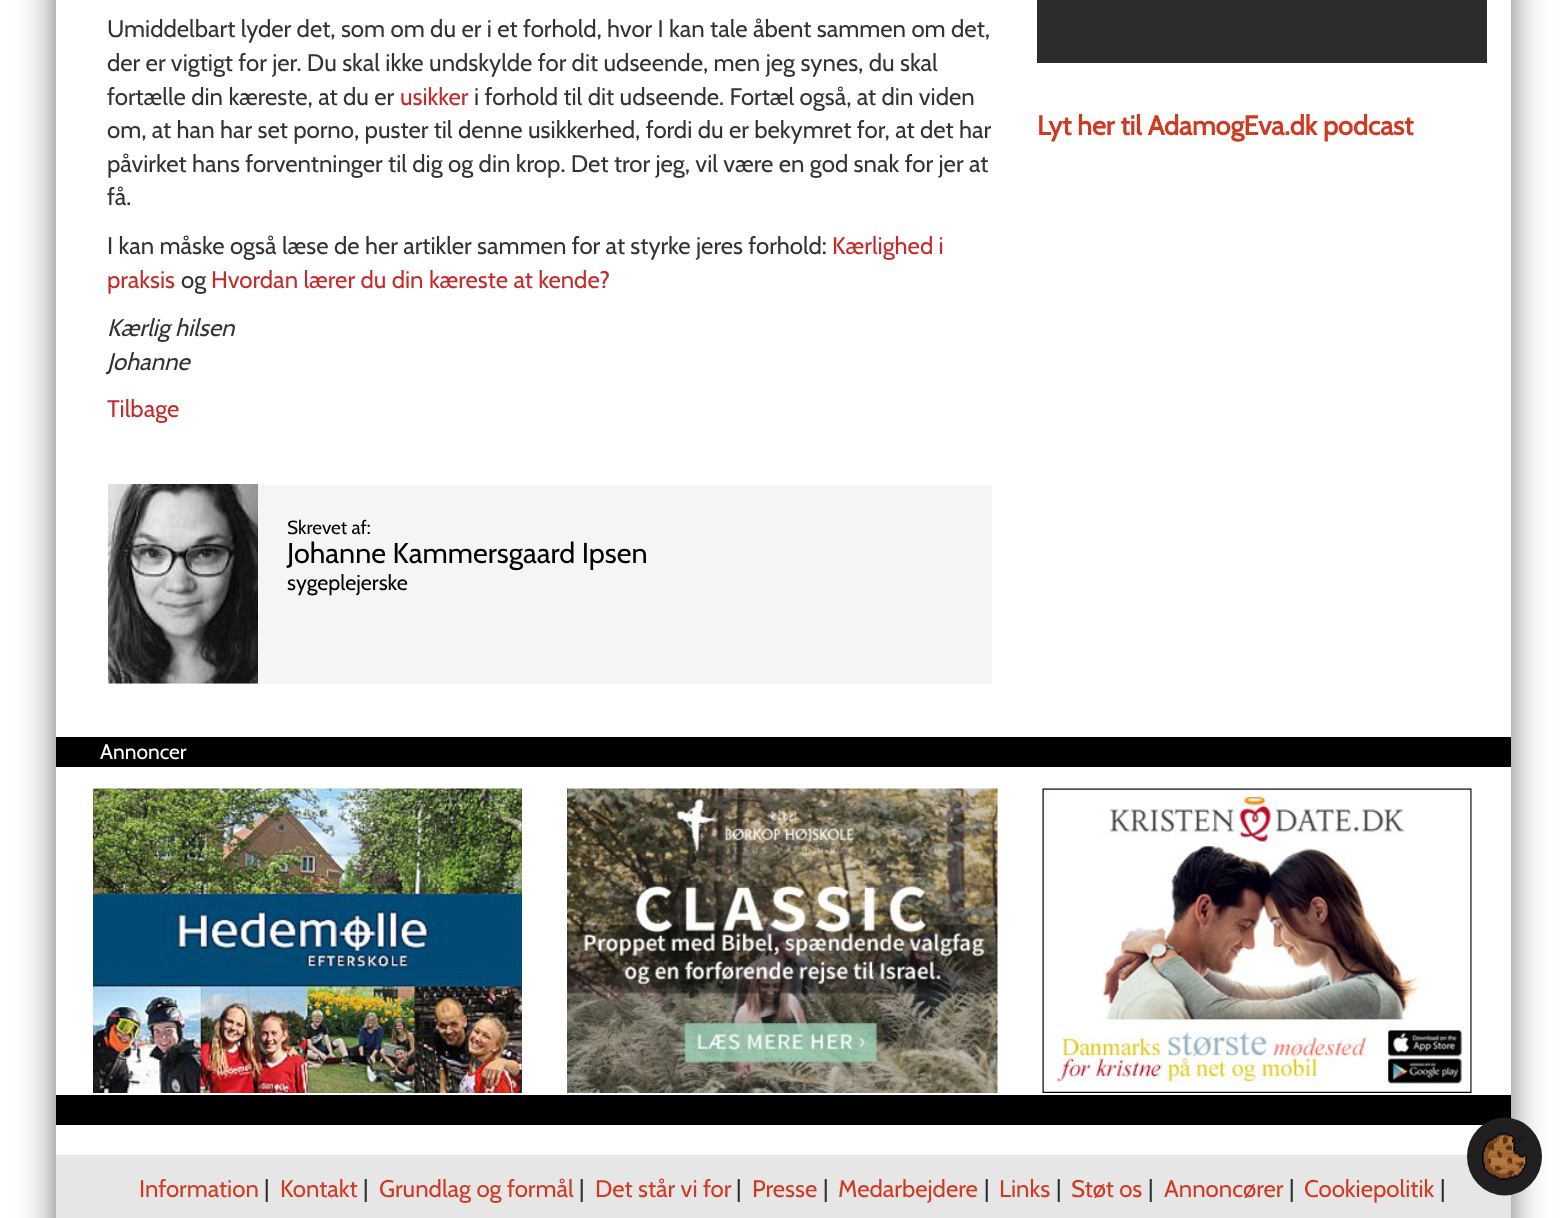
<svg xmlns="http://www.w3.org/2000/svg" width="1564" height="1218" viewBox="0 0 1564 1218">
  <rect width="100%" height="100%" fill="#fff"/>
  <path d="M66 -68h1434v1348H66z" fill="#000000e6" filter="blur(22.5px)"/>
  <path d="M56 0h1455v1155H56z" fill="#fff"/>
  <path d="M108 485h884v199H108z" fill="#f5f5f5"/>
  <image x="108" y="484" width="150" height="200" href="img/1.png"/>
  <path d="M1037 0h450v63H1037z" fill="#2c2c2c"/>
  <path d="M56 737h1455v30H56z" fill="#000"/>
  <image x="93" y="788" width="429" height="305" href="img/2.png"/>
  <image x="567" y="788" width="431" height="305" href="img/3.png"/>
  <image x="1042" y="788" width="430" height="305" href="img/4.png"/>
  <path d="M56 1095h1455v30H56z" fill="#000"/>
  <path d="M56 1155h1455v63H56z" fill="#e6e6e6"/>
  <ellipse cx="1504.5" cy="1156.5" rx="37.5" ry="39" fill="#202020"/>
  <image x="1482" y="1132" width="45" height="49" href="img/5.png"/>
  <g font-family="Cabin" font-size="24" fill="#333">
    <text x="107" y="37">Umiddelbart lyder det, som om du er i et forhold, hvor I kan tale åbent sammen om det,</text>
    <text x="107" y="71">der er vigtigt for jer. Du skal ikke undskylde for dit udseende, men jeg synes, du skal</text>
    <text x="107" y="105">fortælle din kæreste, at du er</text>
  </g>
  <text x="400" y="105" font-family="Cabin" font-size="24" fill="#c42c2b">usikker</text>
  <g font-family="Cabin" font-size="24" fill="#333">
    <text x="474" y="105">i forhold til dit udseende. Fortæl også, at din viden</text>
    <text x="107" y="138">om, at han har set porno, puster til denne usikkerhed, fordi du er bekymret for, at det har</text>
    <text x="107" y="172">påvirket hans forventninger til dig og din krop. Det tror jeg, vil være en god snak for jer at</text>
    <text x="107" y="205">få.</text>
    <text x="107" y="254">I kan måske også læse de her artikler sammen for at styrke jeres forhold:</text>
  </g>
  <g font-family="Cabin" font-size="24" fill="#c42c2b">
    <text x="832" y="254">Kærlighed i</text>
    <text x="107" y="288">praksis</text>
  </g>
  <text x="181" y="288" font-family="Cabin" font-size="24" fill="#333">og</text>
  <text x="211" y="288" font-family="Cabin" font-size="24" fill="#c42c2b">Hvordan lærer du din kæreste at kende?</text>
  <g font-family="Cabin" font-size="24" font-style="italic" fill="#333">
    <text x="107" y="336">Kærlig hilsen</text>
    <text x="107" y="370">Johanne</text>
  </g>
  <text x="107" y="417" font-family="Cabin" font-size="24" fill="#c42c2b">Tilbage</text>
  <text x="287" y="534" font-family="Cabin" font-size="19" fill="#000">Skrevet af:</text>
  <text x="287" y="563" font-family="Cabin" font-size="28.75" fill="#000">Johanne Kammersgaard Ipsen</text>
  <text x="287" y="590" font-family="Cabin" font-size="21.5" fill="#000">sygeplejerske</text>
  <text x="1037" y="135" font-family="Cabin" font-size="27" font-weight="bold" fill="#d03a22">Lyt her til AdamogEva.dk podcast</text>
  <text x="100" y="759" font-family="Cabin" font-size="21" fill="#fff">Annoncer</text>
  <text x="139" y="1197" font-family="Cabin" font-size="24" fill="#d03a22">Information</text>
  <text x="264" y="1197" font-family="Cabin" font-size="24" fill="#333">|</text>
  <text x="280" y="1197" font-family="Cabin" font-size="24" fill="#d03a22">Kontakt</text>
  <text x="363" y="1197" font-family="Cabin" font-size="24" fill="#333">|</text>
  <text x="379" y="1197" font-family="Cabin" font-size="24" fill="#d03a22">Grundlag og formål</text>
  <text x="579" y="1197" font-family="Cabin" font-size="24" fill="#333">|</text>
  <text x="595" y="1197" font-family="Cabin" font-size="24" fill="#d03a22">Det står vi for</text>
  <text x="736" y="1197" font-family="Cabin" font-size="24" fill="#333">|</text>
  <text x="752" y="1197" font-family="Cabin" font-size="24" fill="#d03a22">Presse</text>
  <text x="823" y="1197" font-family="Cabin" font-size="24" fill="#333">|</text>
  <text x="838" y="1197" font-family="Cabin" font-size="24" fill="#d03a22">Medarbejdere</text>
  <text x="984" y="1197" font-family="Cabin" font-size="24" fill="#333">|</text>
  <text x="999" y="1197" font-family="Cabin" font-size="24" fill="#d03a22">Links</text>
  <text x="1056" y="1197" font-family="Cabin" font-size="24" fill="#333">|</text>
  <text x="1071" y="1197" font-family="Cabin" font-size="24" fill="#d03a22">Støt os</text>
  <text x="1148" y="1197" font-family="Cabin" font-size="24" fill="#333">|</text>
  <text x="1164" y="1197" font-family="Cabin" font-size="24" fill="#d03a22">Annoncører</text>
  <text x="1289" y="1197" font-family="Cabin" font-size="24" fill="#333">|</text>
  <text x="1304" y="1197" font-family="Cabin" font-size="24" fill="#d03a22">Cookiepolitik</text>
  <text x="1440" y="1197" font-family="Cabin" font-size="24" fill="#333">|</text>
</svg>
